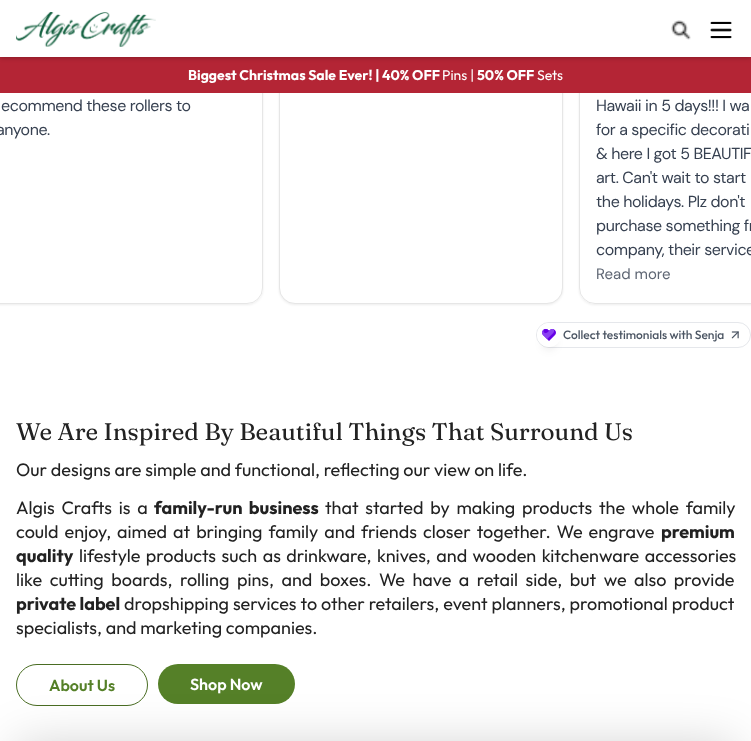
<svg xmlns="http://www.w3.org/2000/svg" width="751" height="741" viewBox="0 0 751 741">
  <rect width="100%" height="100%" fill="#fff"/>
  <rect x="-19" y="-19" width="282" height="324" rx="16" fill="#00000012" filter="blur(1px)"/>
  <path d="M0-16H247C256-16 263-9 263 0V288C263 297 256 304 247 304H0Z" fill="#fff"/>
  <rect x="-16.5" y="-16.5" width="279" height="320" rx="15.5" fill="none" stroke="#e6e6e6"/>
  <rect x="279" y="-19" width="284" height="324" rx="16" fill="#00000012" filter="blur(1px)"/>
  <rect x="279.5" y="-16.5" width="283" height="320" rx="15.5" fill="#fff" stroke="#e6e6e6"/>
  <rect x="579" y="-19" width="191" height="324" rx="16" fill="#00000012" filter="blur(1px)"/>
  <path d="M595-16H751V304H595C586 304 579 297 579 288V0C579-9 586-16 595-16Z" fill="#fff"/>
  <rect x="579.5" y="-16.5" width="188" height="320" rx="15.5" fill="none" stroke="#e6e6e6"/>
  <path d="M0 57h751v36H0z" fill="#b42535"/>
  <path d="M0 1h751v57H0z" fill="#0000003d" filter="blur(2px)"/>
  <path d="M0 0h751v57H0z" fill="#fff"/>
  <image x="16" y="12" width="140" height="35" href="img/1.png"/>
  <image x="671" y="20" width="20" height="20" href="img/2.png"/>
  <image x="710" y="21" width="22" height="18" href="img/3.png"/>
  <rect x="536.5" y="322.5" width="214" height="25" rx="12.5" fill="none" stroke="#e5e7eb"/>
  <rect x="543" y="337" width="12" height="12" rx="6" fill="#0000001a" filter="blur(5px)"/>
  <circle cx="549" cy="335" r="12" fill="#fff"/>
  <image x="542" y="328" width="14" height="13" href="img/4.png"/>
  <image x="731" y="331" width="8" height="8" href="img/5.png"/>
  <rect x="16.5" y="664.5" width="131" height="41" rx="20.5" fill="none" stroke="#4a6d23"/>
  <rect x="158" y="664" width="137" height="40" rx="20" fill="#558028"/>
  <rect x="16" y="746" width="719" height="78" rx="8" fill="#00000030" filter="blur(25px)"/>
  <text x="188" y="80" font-family="Outfit" font-size="14" font-weight="bold" fill="#fff">Biggest Christmas Sale Ever! | 40% OFF</text>
  <text x="442" y="80" font-family="Outfit" font-size="14" fill="#fff">Pins |</text>
  <text x="477" y="80" font-family="Outfit" font-size="14" font-weight="bold" fill="#fff">50% OFF</text>
  <text x="537" y="80" font-family="Outfit" font-size="14" fill="#fff">Sets</text>
  <g font-family="DM Sans" font-size="16" letter-spacing="-0.4" fill="#374151">
    <text x="1" y="111">ecommend these rollers to</text>
    <text x="-4" y="135">anyone.</text>
    <text x="596" y="111">Hawaii in 5 days!!! I wa</text>
    <text x="596" y="135">for a specific decorati</text>
    <text x="596" y="159">&amp; here I got 5 BEAUTIF</text>
    <text x="596" y="183">art. Can't wait to start</text>
    <text x="596" y="207">the holidays. Plz don't</text>
    <text x="596" y="231">purchase something fr</text>
    <text x="596" y="255">company, their service</text>
  </g>
  <text x="596" y="279" font-family="DM Sans" font-size="15" fill="#5f6774">Read more</text>
  <text x="563" y="339" font-family="Outfit" font-size="12" font-weight="500" fill="#4b5563">Collect testimonials with Senja</text>
  <text x="16" y="440" font-family="Fraunces" font-size="24" fill="#222">We Are Inspired By Beautiful Things That Surround Us</text>
  <g font-family="Outfit" font-size="18" fill="#222">
    <text x="16" y="476">Our designs are simple and functional, reflecting our view on life.</text>
    <text x="16" y="514" word-spacing="3">Algis Crafts is a</text>
  </g>
  <text x="154" y="514" word-spacing="3" font-family="Outfit" font-size="18" font-weight="bold" fill="#222">family-run business</text>
  <g font-family="Outfit" font-size="18" fill="#222">
    <text x="325" y="514" word-spacing="3">that started by making products the whole family</text>
    <text x="16" y="538" word-spacing="2.25">could enjoy, aimed at bringing family and friends closer together. We engrave</text>
  </g>
  <g font-family="Outfit" font-size="18" font-weight="bold" fill="#222">
    <text x="661" y="538">premium</text>
    <text x="16" y="562">quality</text>
  </g>
  <g font-family="Outfit" font-size="18" fill="#222">
    <text x="79" y="562" word-spacing="1.75">lifestyle products such as drinkware, knives, and wooden kitchenware accessories</text>
    <text x="16" y="586" word-spacing="3.75">like cutting boards, rolling pins, and boxes. We have a retail side, but we also provide</text>
  </g>
  <text x="16" y="610" font-family="Outfit" font-size="18" font-weight="bold" fill="#222">private label</text>
  <g font-family="Outfit" font-size="18" fill="#222">
    <text x="124" y="610" word-spacing="0.25">dropshipping services to other retailers, event planners, promotional product</text>
    <text x="16" y="634">specialists, and marketing companies.</text>
  </g>
  <text x="49" y="691" font-family="Outfit" font-size="16" font-weight="600" fill="#558028">About Us</text>
  <text x="190" y="690" font-family="Outfit" font-size="16" font-weight="600" fill="#fff">Shop Now</text>
</svg>
